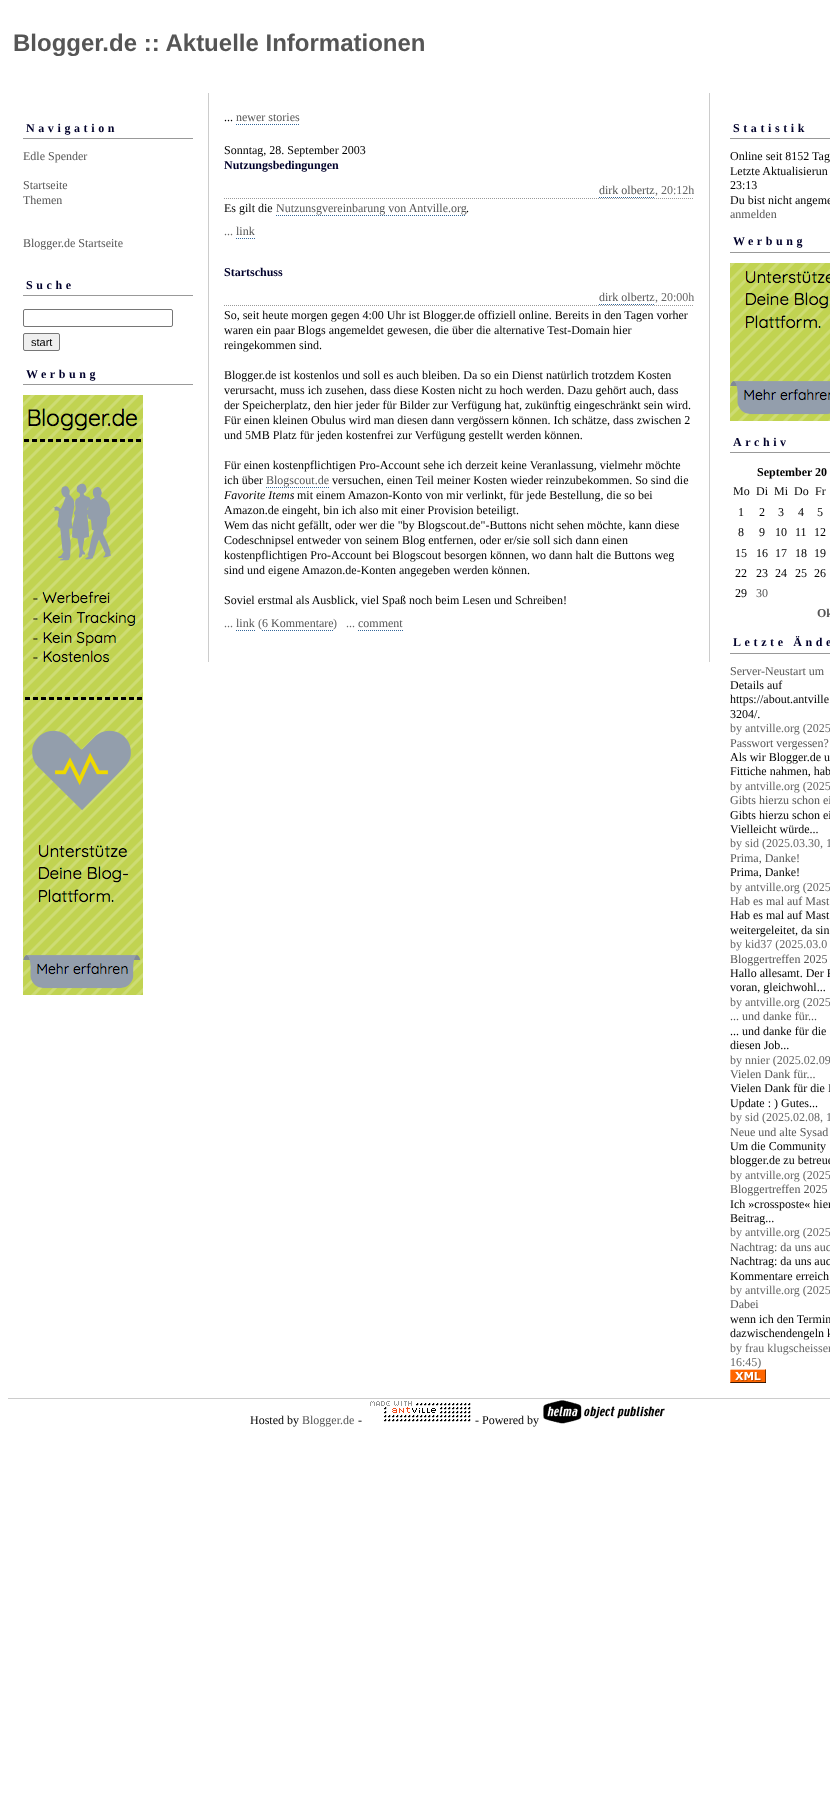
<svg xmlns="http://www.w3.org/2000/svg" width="830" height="1802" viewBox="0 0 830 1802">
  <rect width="100%" height="100%" fill="#fff"/>
  <path d="M23 138h170v1H23z" fill="#999"/>
  <path d="M23 295h170v1H23z" fill="#999"/>
  <rect x="23.5" y="309.5" width="149" height="17" rx="1.5" fill="none" stroke="#767676"/>
  <rect x="23.5" y="333.5" width="36" height="17" rx="1.5" fill="#efefef" stroke="#767676"/>
  <path d="M23 384h170v1H23z" fill="#999"/>
  <image x="23" y="395" width="120" height="600" href="img/1.png"/>
  <path d="M709 93h1v569H709z" fill="#ccc"/>
  <path d="M208 93h1v569H208z" fill="#ccc"/>
  <path d="M236 124.5H300" fill="none" stroke="#369" stroke-dasharray="1 1"/>
  <path d="M224 198.5H694" fill="none" stroke="#999" stroke-dasharray="1 1"/>
  <path d="M599 197.5H655" fill="none" stroke="#369" stroke-dasharray="1 1"/>
  <path d="M276 215.5H466" fill="none" stroke="#369" stroke-dasharray="1 1"/>
  <path d="M236 238.5H255" fill="none" stroke="#369" stroke-dasharray="1 1"/>
  <path d="M224 305.5H694" fill="none" stroke="#999" stroke-dasharray="1 1"/>
  <path d="M599 304.5H655" fill="none" stroke="#369" stroke-dasharray="1 1"/>
  <path d="M266 487.5H329" fill="none" stroke="#369" stroke-dasharray="1 1"/>
  <path d="M236 630.5H255" fill="none" stroke="#369" stroke-dasharray="1 1"/>
  <path d="M262 630.5H333" fill="none" stroke="#369" stroke-dasharray="1 1"/>
  <path d="M358 630.5H403" fill="none" stroke="#369" stroke-dasharray="1 1"/>
  <path d="M730 138h100v1H730z" fill="#999"/>
  <path d="M730 252h100v1H730z" fill="#999"/>
  <image x="730" y="263" width="100" height="158" href="img/2.png"/>
  <path d="M730 452h100v1H730z" fill="#999"/>
  <path d="M730 653h100v1H730z" fill="#999"/>
  <image x="730" y="1369" width="36" height="14" href="img/3.png"/>
  <path d="M8 1398h822v1H8z" fill="#ccc"/>
  <image x="370" y="1401" width="101" height="21" href="img/4.png"/>
  <image x="543" y="1400" width="122" height="24" href="img/5.png"/>
  <text x="13" y="51" font-family="Liberation Sans" font-size="24" font-weight="bold" fill="#555">Blogger.de :: Aktuelle Informationen</text>
  <text x="26" y="132" font-family="Liberation Serif" font-size="12" font-weight="bold" letter-spacing="3.6" fill="#00002b">Navigation</text>
  <g font-family="Liberation Serif" font-size="12" fill="#555">
    <text x="23" y="160">Edle Spender</text>
    <text x="23" y="189">Startseite</text>
    <text x="23" y="204">Themen</text>
    <text x="23" y="247">Blogger.de Startseite</text>
  </g>
  <text x="26" y="289" font-family="Liberation Serif" font-size="12" font-weight="bold" letter-spacing="3.6" fill="#00002b">Suche</text>
  <text x="31" y="346" font-family="Liberation Sans" font-size="11" fill="#000">start</text>
  <text x="26" y="378" font-family="Liberation Serif" font-size="12" font-weight="bold" letter-spacing="3.6" fill="#00002b">Werbung</text>
  <text x="224" y="121" font-family="Liberation Serif" font-size="12" fill="#000">...</text>
  <text x="236" y="121" font-family="Liberation Serif" font-size="12" fill="#555">newer stories</text>
  <text x="224" y="154" font-family="Liberation Serif" font-size="12" fill="#000">Sonntag, 28. September 2003</text>
  <text x="224" y="169" font-family="Liberation Serif" font-size="12" font-weight="bold" fill="#00002b">Nutzungsbedingungen</text>
  <text x="599" y="194" font-family="Liberation Serif" font-size="12" fill="#555">dirk olbertz</text>
  <text x="655" y="194" font-family="Liberation Serif" font-size="12" fill="#666">, 20:12h</text>
  <text x="224" y="212" font-family="Liberation Serif" font-size="12" fill="#000">Es gilt die</text>
  <text x="276" y="212" font-family="Liberation Serif" font-size="12" fill="#555">Nutzunsgvereinbarung von Antville.org</text>
  <text x="466" y="212" font-family="Liberation Serif" font-size="12" fill="#000">.</text>
  <text x="224" y="235" font-family="Liberation Serif" font-size="12" fill="#666">...</text>
  <text x="236" y="235" font-family="Liberation Serif" font-size="12" fill="#555">link</text>
  <text x="224" y="276" font-family="Liberation Serif" font-size="12" font-weight="bold" fill="#00002b">Startschuss</text>
  <text x="599" y="301" font-family="Liberation Serif" font-size="12" fill="#555">dirk olbertz</text>
  <text x="655" y="301" font-family="Liberation Serif" font-size="12" fill="#666">, 20:00h</text>
  <g font-family="Liberation Serif" font-size="12" fill="#000">
    <text x="224" y="319">So, seit heute morgen gegen 4:00 Uhr ist Blogger.de offiziell online. Bereits in den Tagen vorher</text>
    <text x="224" y="334">waren ein paar Blogs angemeldet gewesen, die über die alternative Test-Domain hier</text>
    <text x="224" y="349">reingekommen sind.</text>
    <text x="224" y="379">Blogger.de ist kostenlos und soll es auch bleiben. Da so ein Dienst natürlich trotzdem Kosten</text>
    <text x="224" y="394">verursacht, muss ich zusehen, dass diese Kosten nicht zu hoch werden. Dazu gehört auch, dass</text>
    <text x="224" y="409">der Speicherplatz, den hier jeder für Bilder zur Verfügung hat, zukünftig eingeschränkt sein wird.</text>
    <text x="224" y="424">Für einen kleinen Obulus wird man diesen dann vergössern können. Ich schätze, dass zwischen 2</text>
    <text x="224" y="439">und 5MB Platz für jeden kostenfrei zur Verfügung gestellt werden können.</text>
    <text x="224" y="469">Für einen kostenpflichtigen Pro-Account sehe ich derzeit keine Veranlassung, vielmehr möchte</text>
    <text x="224" y="484">ich über</text>
  </g>
  <text x="266" y="484" font-family="Liberation Serif" font-size="12" fill="#555">Blogscout.de</text>
  <text x="332" y="484" font-family="Liberation Serif" font-size="12" fill="#000">versuchen, einen Teil meiner Kosten wieder reinzubekommen. So sind die</text>
  <text x="224" y="499" font-family="Liberation Serif" font-size="12" font-style="italic" fill="#000">Favorite Items</text>
  <g font-family="Liberation Serif" font-size="12" fill="#000">
    <text x="297" y="499">mit einem Amazon-Konto von mir verlinkt, für jede Bestellung, die so bei</text>
    <text x="224" y="514">Amazon.de eingeht, bin ich also mit einer Provision beteiligt.</text>
    <text x="224" y="529">Wem das nicht gefällt, oder wer die "by Blogscout.de"-Buttons nicht sehen möchte, kann diese</text>
    <text x="224" y="544">Codeschnipsel entweder von seinem Blog entfernen, oder er/sie soll sich dann einen</text>
    <text x="224" y="559">kostenpflichtigen Pro-Account bei Blogscout besorgen können, wo dann halt die Buttons weg</text>
    <text x="224" y="574">sind und eigene Amazon.de-Konten angegeben werden können.</text>
    <text x="224" y="604">Soviel erstmal als Ausblick, viel Spaß noch beim Lesen und Schreiben!</text>
  </g>
  <text x="224" y="627" font-family="Liberation Serif" font-size="12" fill="#666">...</text>
  <text x="236" y="627" font-family="Liberation Serif" font-size="12" fill="#555">link</text>
  <text x="258" y="627" font-family="Liberation Serif" font-size="12" fill="#666">(</text>
  <text x="262" y="627" font-family="Liberation Serif" font-size="12" fill="#555">6 Kommentare</text>
  <text x="333" y="627" font-family="Liberation Serif" font-size="12" fill="#666" xml:space="preserve">)   ...</text>
  <text x="358" y="627" font-family="Liberation Serif" font-size="12" fill="#555">comment</text>
  <text x="733" y="132" font-family="Liberation Serif" font-size="12" font-weight="bold" letter-spacing="3.6" fill="#00002b">Statistik</text>
  <g font-family="Liberation Serif" font-size="12" fill="#000">
    <text x="730" y="160">Online seit 8152 Tag</text>
    <text x="730" y="175">Letzte Aktualisierun</text>
    <text x="730" y="189">23:13</text>
    <text x="730" y="204">Du bist nicht angeme</text>
  </g>
  <text x="730" y="218" font-family="Liberation Serif" font-size="12" fill="#555">anmelden</text>
  <g font-family="Liberation Serif" font-size="12" font-weight="bold" letter-spacing="3.6" fill="#00002b">
    <text x="733" y="245">Werbung</text>
    <text x="733" y="446">Archiv</text>
  </g>
  <text x="757" y="476" font-family="Liberation Serif" font-size="12" font-weight="bold" fill="#000">September 20</text>
  <g font-family="Liberation Serif" font-size="12" fill="#000">
    <text x="733" y="495">Mo</text>
    <text x="756" y="495">Di</text>
    <text x="774" y="495">Mi</text>
    <text x="794" y="495">Do</text>
    <text x="815" y="495">Fr</text>
    <text x="738" y="516">1</text>
    <text x="759" y="516">2</text>
    <text x="778" y="516">3</text>
    <text x="798" y="516">4</text>
    <text x="817" y="516">5</text>
    <text x="738" y="536">8</text>
    <text x="759" y="536">9</text>
    <text x="775" y="536">10</text>
    <text x="795" y="536">11</text>
    <text x="814" y="536">12</text>
    <text x="735" y="557">15</text>
    <text x="756" y="557">16</text>
    <text x="775" y="557">17</text>
    <text x="795" y="557">18</text>
    <text x="814" y="557">19</text>
    <text x="735" y="577">22</text>
    <text x="756" y="577">23</text>
    <text x="775" y="577">24</text>
    <text x="795" y="577">25</text>
    <text x="814" y="577">26</text>
    <text x="735" y="597">29</text>
  </g>
  <text x="756" y="597" font-family="Liberation Serif" font-size="12" fill="#555">30</text>
  <text x="817" y="617" font-family="Liberation Serif" font-size="12" font-weight="bold" fill="#555">Ok</text>
  <text x="733" y="646" font-family="Liberation Serif" font-size="12" font-weight="bold" letter-spacing="3.6" fill="#00002b">Letzte Ände</text>
  <text x="730" y="675" font-family="Liberation Serif" font-size="12" fill="#555">Server-Neustart um</text>
  <g font-family="Liberation Serif" font-size="12" fill="#000">
    <text x="730" y="689">Details auf</text>
    <text x="730" y="703">https://about.antville</text>
    <text x="730" y="718">3204/.</text>
  </g>
  <text x="730" y="732" font-family="Liberation Serif" font-size="12" fill="#666">by antville.org (2025</text>
  <text x="730" y="747" font-family="Liberation Serif" font-size="12" fill="#555">Passwort vergessen?</text>
  <g font-family="Liberation Serif" font-size="12" fill="#000">
    <text x="730" y="761">Als wir Blogger.de u</text>
    <text x="730" y="775">Fittiche nahmen, hab</text>
  </g>
  <text x="730" y="790" font-family="Liberation Serif" font-size="12" fill="#666">by antville.org (2025</text>
  <text x="730" y="804" font-family="Liberation Serif" font-size="12" fill="#555">Gibts hierzu schon ei</text>
  <g font-family="Liberation Serif" font-size="12" fill="#000">
    <text x="730" y="819">Gibts hierzu schon ei</text>
    <text x="730" y="833">Vielleicht würde...</text>
  </g>
  <text x="730" y="847" font-family="Liberation Serif" font-size="12" fill="#666">by sid (2025.03.30, 1</text>
  <text x="730" y="862" font-family="Liberation Serif" font-size="12" fill="#555">Prima, Danke!</text>
  <text x="730" y="876" font-family="Liberation Serif" font-size="12" fill="#000">Prima, Danke!</text>
  <text x="730" y="891" font-family="Liberation Serif" font-size="12" fill="#666">by antville.org (2025</text>
  <text x="730" y="905" font-family="Liberation Serif" font-size="12" fill="#555">Hab es mal auf Mast</text>
  <g font-family="Liberation Serif" font-size="12" fill="#000">
    <text x="730" y="919">Hab es mal auf Mast</text>
    <text x="730" y="934">weitergeleitet, da sin</text>
  </g>
  <text x="730" y="948" font-family="Liberation Serif" font-size="12" fill="#666">by kid37 (2025.03.0</text>
  <text x="730" y="963" font-family="Liberation Serif" font-size="12" fill="#555">Bloggertreffen 2025</text>
  <g font-family="Liberation Serif" font-size="12" fill="#000">
    <text x="730" y="977">Hallo allesamt. Der P</text>
    <text x="730" y="991">voran, gleichwohl...</text>
  </g>
  <text x="730" y="1006" font-family="Liberation Serif" font-size="12" fill="#666">by antville.org (2025</text>
  <text x="730" y="1020" font-family="Liberation Serif" font-size="12" fill="#555">... und danke für...</text>
  <g font-family="Liberation Serif" font-size="12" fill="#000">
    <text x="730" y="1035">... und danke für die</text>
    <text x="730" y="1049">diesen Job...</text>
  </g>
  <text x="730" y="1064" font-family="Liberation Serif" font-size="12" fill="#666">by nnier (2025.02.09</text>
  <text x="730" y="1078" font-family="Liberation Serif" font-size="12" fill="#555">Vielen Dank für...</text>
  <g font-family="Liberation Serif" font-size="12" fill="#000">
    <text x="730" y="1092">Vielen Dank für die I</text>
    <text x="730" y="1107">Update : ) Gutes...</text>
  </g>
  <text x="730" y="1121" font-family="Liberation Serif" font-size="12" fill="#666">by sid (2025.02.08, 1</text>
  <text x="730" y="1136" font-family="Liberation Serif" font-size="12" fill="#555">Neue und alte Sysad</text>
  <g font-family="Liberation Serif" font-size="12" fill="#000">
    <text x="730" y="1150">Um die Community</text>
    <text x="730" y="1164">blogger.de zu betreue</text>
  </g>
  <text x="730" y="1179" font-family="Liberation Serif" font-size="12" fill="#666">by antville.org (2025</text>
  <text x="730" y="1193" font-family="Liberation Serif" font-size="12" fill="#555">Bloggertreffen 2025</text>
  <g font-family="Liberation Serif" font-size="12" fill="#000">
    <text x="730" y="1208">Ich »crossposte« hier</text>
    <text x="730" y="1222">Beitrag...</text>
  </g>
  <text x="730" y="1236" font-family="Liberation Serif" font-size="12" fill="#666">by antville.org (2025</text>
  <text x="730" y="1251" font-family="Liberation Serif" font-size="12" fill="#555">Nachtrag: da uns auc</text>
  <g font-family="Liberation Serif" font-size="12" fill="#000">
    <text x="730" y="1265">Nachtrag: da uns auc</text>
    <text x="730" y="1280">Kommentare erreich</text>
  </g>
  <text x="730" y="1294" font-family="Liberation Serif" font-size="12" fill="#666">by antville.org (2025</text>
  <text x="730" y="1308" font-family="Liberation Serif" font-size="12" fill="#555">Dabei</text>
  <g font-family="Liberation Serif" font-size="12" fill="#000">
    <text x="730" y="1323">wenn ich den Termin</text>
    <text x="730" y="1337">dazwischendengeln k</text>
  </g>
  <g font-family="Liberation Serif" font-size="12" fill="#666">
    <text x="730" y="1352">by frau klugscheisser</text>
    <text x="730" y="1366">16:45)</text>
  </g>
  <text x="250" y="1424" font-family="Liberation Serif" font-size="12" fill="#000">Hosted by</text>
  <text x="302" y="1424" font-family="Liberation Serif" font-size="12" fill="#555">Blogger.de</text>
  <g font-family="Liberation Serif" font-size="12" fill="#000">
    <text x="358" y="1424">-</text>
    <text x="475" y="1424">- Powered by</text>
  </g>
</svg>
